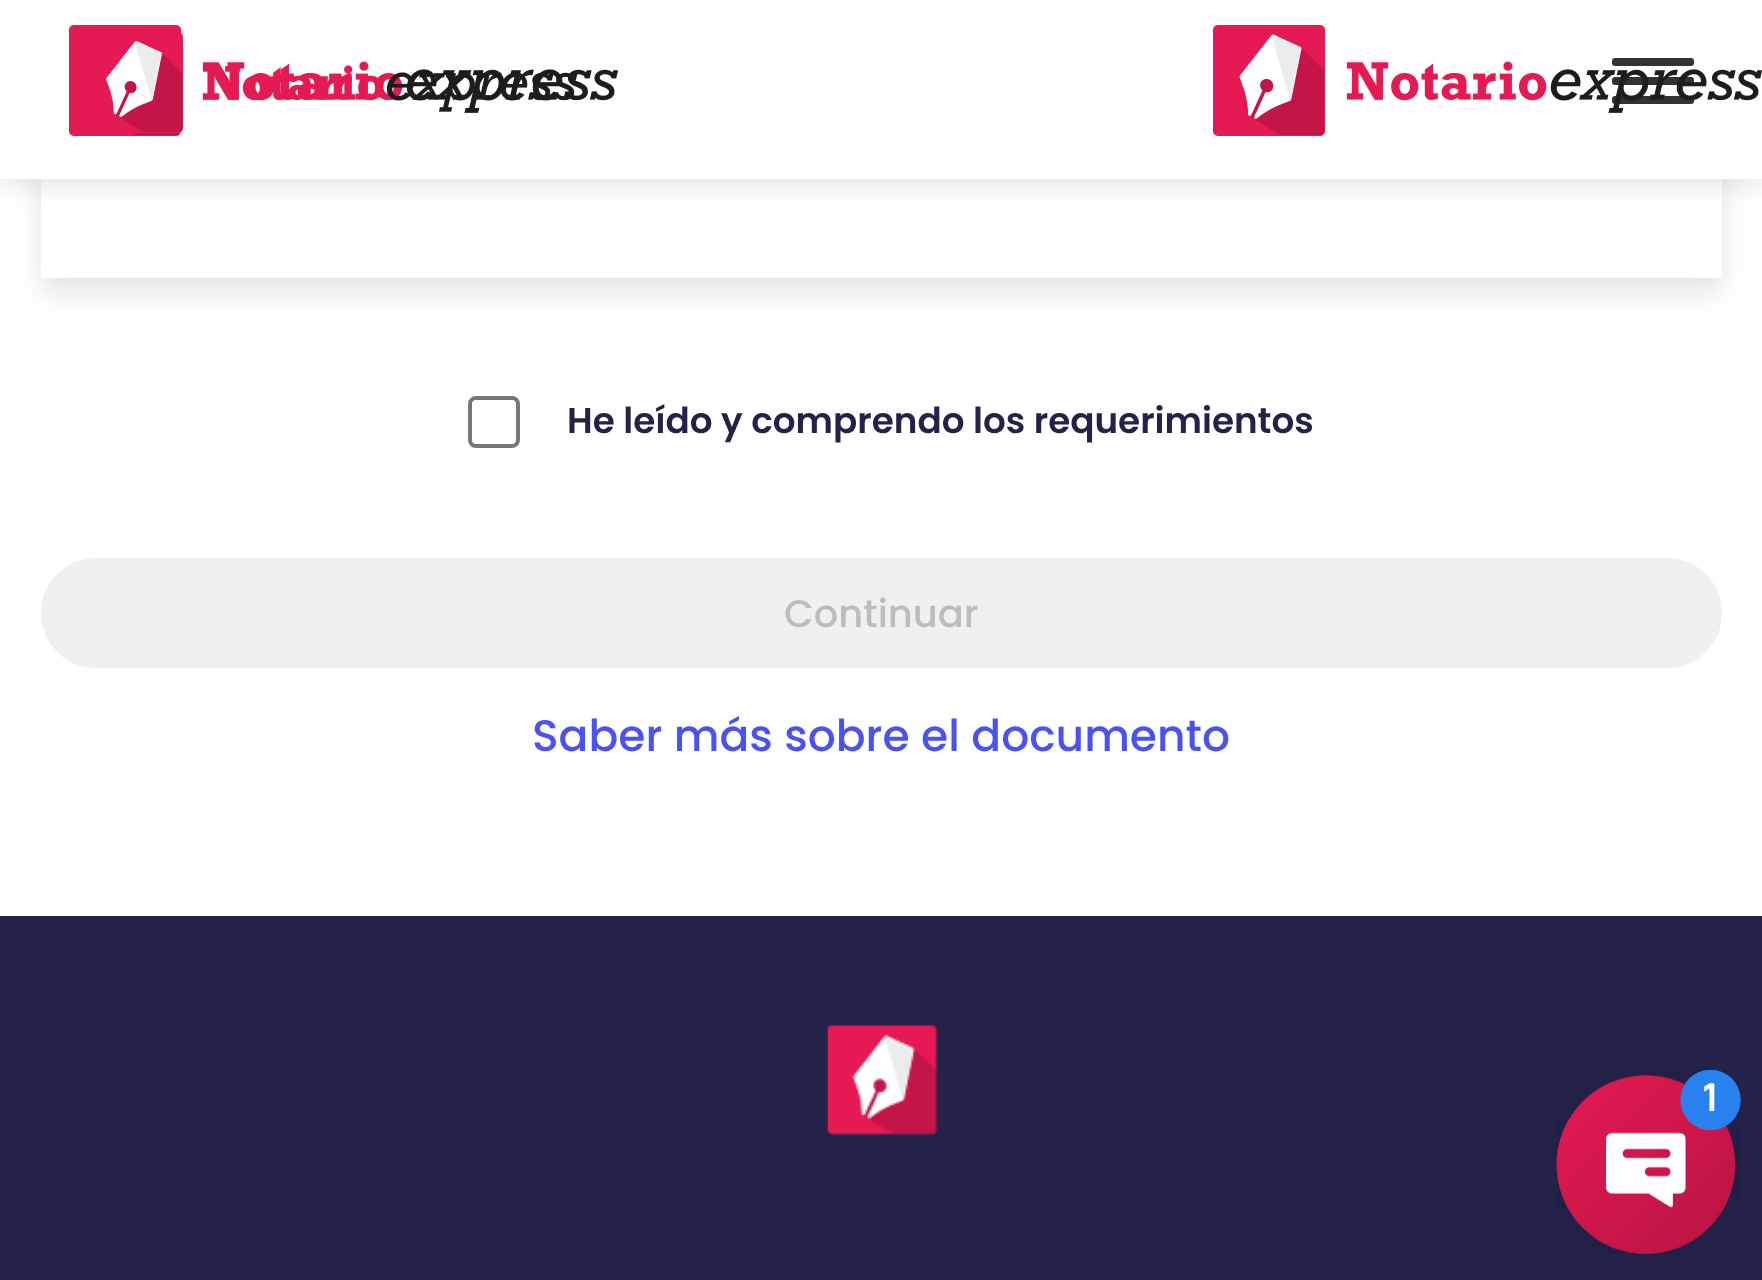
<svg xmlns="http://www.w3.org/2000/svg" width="1762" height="1280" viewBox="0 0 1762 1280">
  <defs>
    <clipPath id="clip1"><path d="M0 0H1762V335H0ZM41-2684H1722V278H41Z" clip-rule="evenodd"/></clipPath>
  </defs>
  <rect width="100%" height="100%" fill="#fff"/>
  <path d="M0 6h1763v178H0z" fill="#74747433" filter="blur(14px)"/>
  <g clip-path="url(#clip1)">
    <path d="M41 -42h1681v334H41z" fill="#74747433" filter="blur(14px)"/>
  </g>
  <path d="M0 0h1762v179H0z" fill="#fff"/>
  <image x="69" y="25" width="550" height="111" href="img/1.png"/>
  <image x="95" y="33" width="483" height="100" href="img/2.png"/>
  <rect x="1612" y="58" width="82" height="8" rx="3" fill="#333"/>
  <rect x="1612" y="77" width="82" height="8" rx="3" fill="#333"/>
  <rect x="1612" y="96" width="82" height="8" rx="3" fill="#333"/>
  <image x="1213" y="25" width="549" height="111" href="img/3.png"/>
  <rect x="470" y="398" width="48" height="48" rx="6" fill="none" stroke="#767676" stroke-width="4"/>
  <rect x="44" y="561" width="1675" height="104" rx="52" fill="#f0f0f0" stroke="#f0f0f0" stroke-width="6"/>
  <path d="M0 916h1762v364H0z" fill="#25224a"/>
  <image x="827" y="1025" width="111" height="111" href="img/4.png"/>
  <image x="1556" y="1069" width="185" height="186" href="img/5.png"/>
  <text x="567" y="433" font-family="Poppins" font-size="35.75" font-weight="600" fill="#25224a">He leído y comprendo los requerimientos</text>
  <text x="784" y="627" font-family="Poppins" font-size="38.5" font-weight="500" fill="#bdbdbd">Continuar</text>
  <text x="532" y="751" font-family="Poppins" font-size="44" font-weight="500" fill="#4a52f2">Saber más sobre el documento</text>
</svg>
